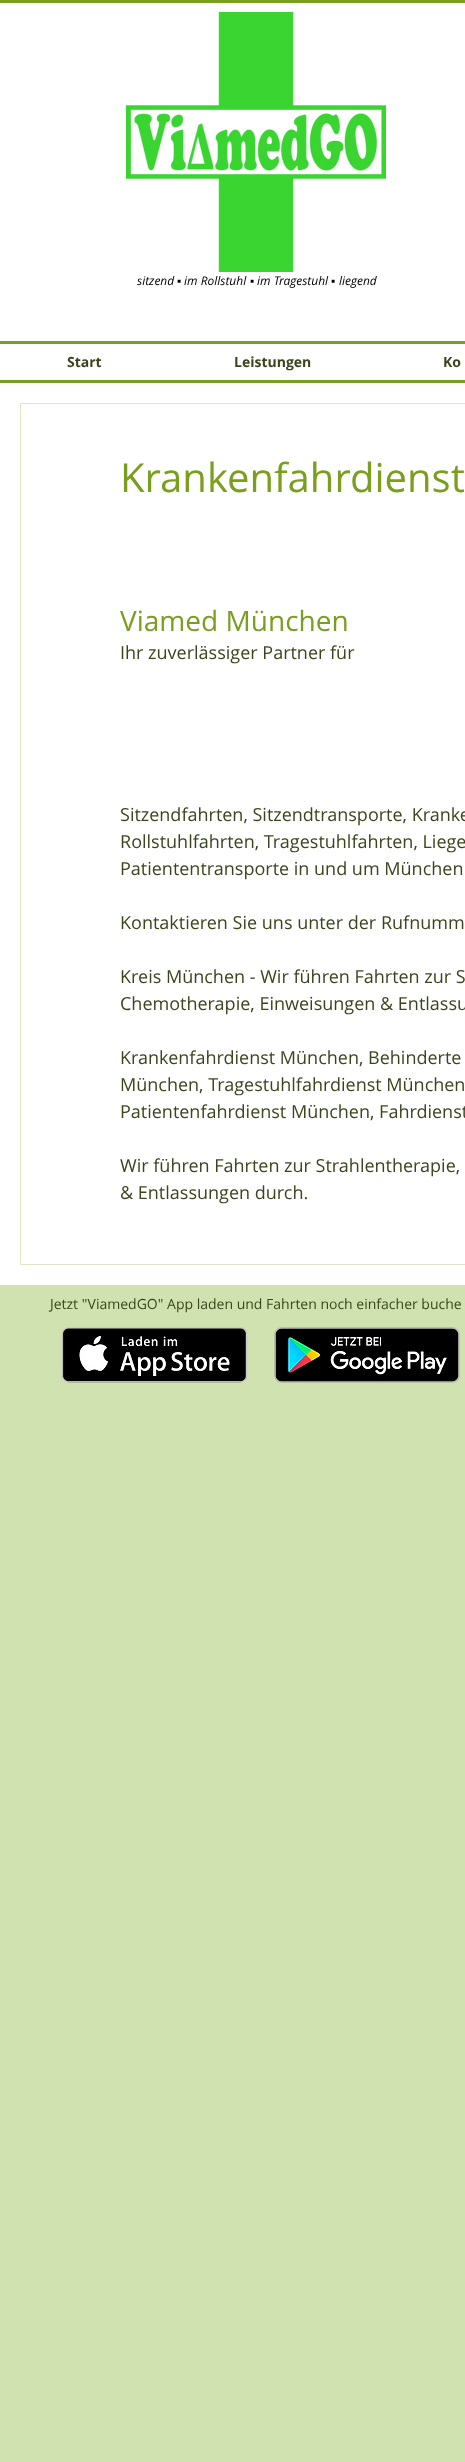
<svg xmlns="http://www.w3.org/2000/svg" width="465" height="2462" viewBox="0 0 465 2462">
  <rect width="100%" height="100%" fill="#d0e2b0"/>
  <path d="M0 3h465v377H0z" fill="#fff"/>
  <path d="M0 0h465v3H0z" fill="#7a9e1e"/>
  <image x="126" y="12" width="260" height="260" href="img/1.png"/>
  <path d="M0 341h465v3H0z" fill="#7a9e1e"/>
  <path d="M0 380h465v3H0z" fill="#7a9e1e"/>
  <path d="M0 383h465v902H0z" fill="#fff"/>
  <path d="M20.5 403.5h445v861H20.5z" fill="none" stroke="#dce9c4"/>
  <image x="61" y="1327" width="187" height="56" href="img/2.png"/>
  <image x="274" y="1327" width="186" height="56" href="img/3.png"/>
  <text x="137" y="285" font-family="Open Sans" font-size="12" font-style="italic" fill="#000">sitzend</text>
  <text x="177" y="285" font-family="Liberation Sans" font-size="12" font-style="italic" fill="#000">▪</text>
  <text x="184" y="285" font-family="Open Sans" font-size="12" font-style="italic" fill="#000">im Rollstuhl</text>
  <text x="250" y="285" font-family="Liberation Sans" font-size="12" font-style="italic" fill="#000">▪</text>
  <text x="257" y="285" font-family="Open Sans" font-size="12" font-style="italic" fill="#000">im Tragestuhl</text>
  <text x="331" y="285" font-family="Liberation Sans" font-size="12" font-style="italic" fill="#000">▪</text>
  <text x="339" y="285" font-family="Open Sans" font-size="12" font-style="italic" fill="#000">liegend</text>
  <g font-family="Open Sans" font-size="14" font-weight="bold" fill="#39461d">
    <text x="67" y="367">Start</text>
    <text x="234" y="367">Leistungen</text>
    <text x="443" y="367">Ko</text>
  </g>
  <text x="120" y="492" font-family="Open Sans" font-size="40" fill="#7a9e1e">Krankenfahrdienst</text>
  <text x="120" y="631" font-family="Open Sans" font-size="28" fill="#7a9e1e">Viamed München</text>
  <g font-family="Open Sans" font-size="18" fill="#39461d">
    <text x="120" y="659">Ihr zuverlässiger Partner für</text>
    <text x="120" y="821">Sitzendfahrten, Sitzendtransporte, Kranke</text>
    <text x="120" y="848">Rollstuhlfahrten, Tragestuhlfahrten, Liege</text>
    <text x="120" y="875">Patiententransporte in und um München</text>
    <text x="120" y="929">Kontaktieren Sie uns unter der Rufnumm</text>
    <text x="120" y="983">Kreis München - Wir führen Fahrten zur S</text>
    <text x="120" y="1010">Chemotherapie, Einweisungen &amp; Entlassu</text>
    <text x="120" y="1064">Krankenfahrdienst München, Behinderte</text>
    <text x="120" y="1091">München, Tragestuhlfahrdienst München</text>
    <text x="120" y="1118">Patientenfahrdienst München, Fahrdienst</text>
    <text x="120" y="1172">Wir führen Fahrten zur Strahlentherapie,</text>
    <text x="120" y="1199">&amp; Entlassungen durch.</text>
  </g>
  <text x="50" y="1309" font-family="Open Sans" font-size="14" fill="#39461d">Jetzt "ViamedGO" App laden und Fahrten noch einfacher buche</text>
</svg>
